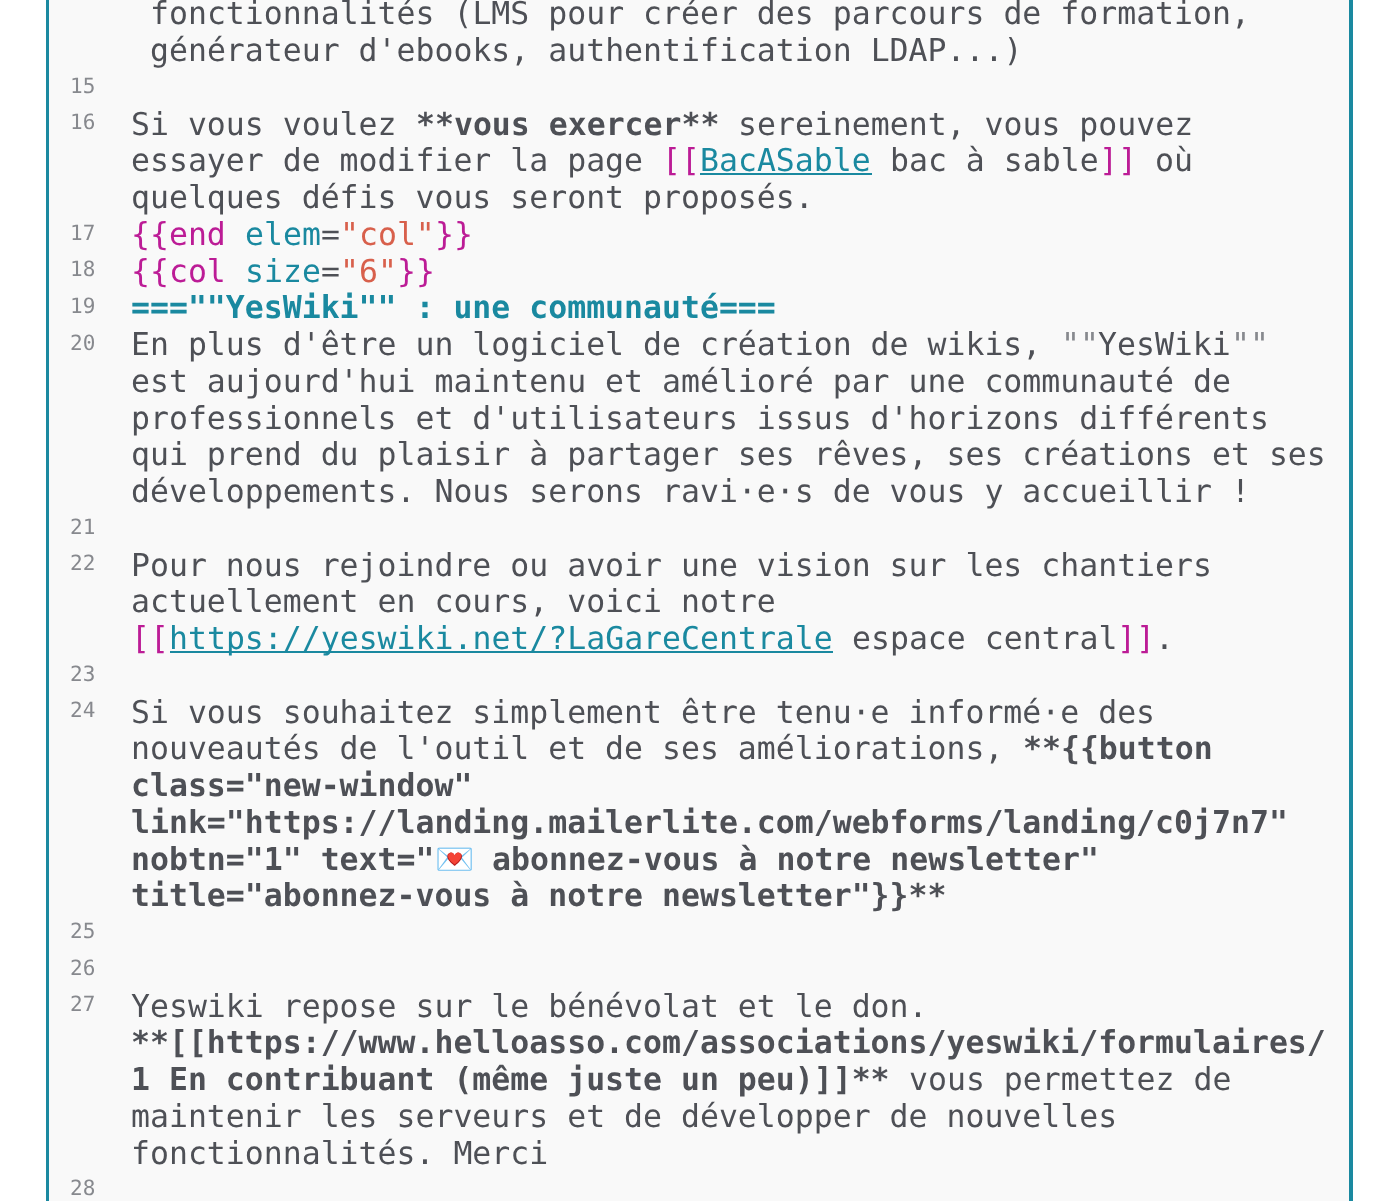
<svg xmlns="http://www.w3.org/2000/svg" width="1375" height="1201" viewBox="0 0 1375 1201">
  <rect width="100%" height="100%" fill="#fff"/>
  <path d="M49 0h1300v1201H49z" fill="#f9f9f9"/>
  <path d="M46-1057H1353V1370C1353 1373 1350 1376 1348 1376H51C48 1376 46 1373 46 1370ZM49-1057H1349V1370C1349 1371 1348 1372 1348 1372H51C50 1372 49 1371 49 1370Z" fill="#1a89a0" fill-rule="evenodd"/>
  <path d="M700 173h172v2H700z" fill="#1a89a0"/>
  <path d="M170 651h663v2H170z" fill="#1a89a0"/>
  <g font-family="DejaVu Sans Mono" font-size="21" fill="#87898e">
    <text x="70" y="93">15</text>
    <text x="70" y="129">16</text>
    <text x="70" y="240">17</text>
    <text x="70" y="276">18</text>
    <text x="70" y="313">19</text>
    <text x="70" y="350">20</text>
    <text x="70" y="534">21</text>
    <text x="70" y="570">22</text>
    <text x="70" y="681">23</text>
    <text x="70" y="717">24</text>
    <text x="70" y="938">25</text>
    <text x="70" y="975">26</text>
    <text x="70" y="1011">27</text>
    <text x="70" y="1195">28</text>
  </g>
  <g font-family="DejaVu Sans Mono" font-size="31.5" fill="#4e5056">
    <text x="150" y="24">fonctionnalités (LMS pour créer des parcours de formation,</text>
    <text x="150" y="61">générateur d'ebooks, authentification LDAP...)</text>
    <text x="131" y="135">Si vous voulez</text>
  </g>
  <text x="416" y="135" font-family="DejaVu Sans Mono" font-size="31.5" font-weight="bold" fill="#4e5056">**vous exercer**</text>
  <g font-family="DejaVu Sans Mono" font-size="31.5" fill="#4e5056">
    <text x="738" y="135">sereinement, vous pouvez</text>
    <text x="131" y="171">essayer de modifier la page</text>
  </g>
  <text x="662" y="171" font-family="DejaVu Sans Mono" font-size="31.5" fill="#bc1c96">[[</text>
  <text x="700" y="171" font-family="DejaVu Sans Mono" font-size="31.5" fill="#1a89a0">BacASable</text>
  <text x="890" y="171" font-family="DejaVu Sans Mono" font-size="31.5" fill="#4e5056">bac à sable</text>
  <text x="1099" y="171" font-family="DejaVu Sans Mono" font-size="31.5" fill="#bc1c96">]]</text>
  <g font-family="DejaVu Sans Mono" font-size="31.5" fill="#4e5056">
    <text x="1155" y="171">où</text>
    <text x="131" y="208">quelques défis vous seront proposés.</text>
  </g>
  <text x="131" y="245" font-family="DejaVu Sans Mono" font-size="31.5" fill="#bc1c96">{{end</text>
  <text x="245" y="245" font-family="DejaVu Sans Mono" font-size="31.5" fill="#1a89a0">elem</text>
  <text x="321" y="245" font-family="DejaVu Sans Mono" font-size="31.5" fill="#4e5056">=</text>
  <text x="340" y="245" font-family="DejaVu Sans Mono" font-size="31.5" fill="#d8604c">"col"</text>
  <g font-family="DejaVu Sans Mono" font-size="31.5" fill="#bc1c96">
    <text x="435" y="245">}}</text>
    <text x="131" y="282">{{col</text>
  </g>
  <text x="245" y="282" font-family="DejaVu Sans Mono" font-size="31.5" fill="#1a89a0">size</text>
  <text x="321" y="282" font-family="DejaVu Sans Mono" font-size="31.5" fill="#4e5056">=</text>
  <text x="340" y="282" font-family="DejaVu Sans Mono" font-size="31.5" fill="#d8604c">"6"</text>
  <text x="397" y="282" font-family="DejaVu Sans Mono" font-size="31.5" fill="#bc1c96">}}</text>
  <text x="131" y="318" font-family="DejaVu Sans Mono" font-size="31.5" font-weight="bold" fill="#1a89a0">===""YesWiki"" : une communauté===</text>
  <text x="131" y="355" font-family="DejaVu Sans Mono" font-size="31.5" fill="#4e5056">En plus d'être un logiciel de création de wikis,</text>
  <text x="1061" y="355" font-family="DejaVu Sans Mono" font-size="31.5" fill="#87898e">""</text>
  <text x="1098" y="355" font-family="DejaVu Sans Mono" font-size="31.5" fill="#4e5056">YesWiki</text>
  <text x="1231" y="355" font-family="DejaVu Sans Mono" font-size="31.5" fill="#87898e">""</text>
  <g font-family="DejaVu Sans Mono" font-size="31.5" fill="#4e5056">
    <text x="131" y="392">est aujourd'hui maintenu et amélioré par une communauté de</text>
    <text x="131" y="429">professionnels et d'utilisateurs issus d'horizons différents</text>
    <text x="131" y="465">qui prend du plaisir à partager ses rêves, ses créations et ses</text>
    <text x="131" y="502">développements. Nous serons ravi·e·s de vous y accueillir !</text>
    <text x="131" y="576">Pour nous rejoindre ou avoir une vision sur les chantiers</text>
    <text x="131" y="612">actuellement en cours, voici notre</text>
  </g>
  <text x="131" y="649" font-family="DejaVu Sans Mono" font-size="31.5" fill="#bc1c96">[[</text>
  <text x="169" y="649" font-family="DejaVu Sans Mono" font-size="31.5" fill="#1a89a0">https://yeswiki.net/?LaGareCentrale</text>
  <text x="852" y="649" font-family="DejaVu Sans Mono" font-size="31.5" fill="#4e5056">espace central</text>
  <text x="1117" y="649" font-family="DejaVu Sans Mono" font-size="31.5" fill="#bc1c96">]]</text>
  <g font-family="DejaVu Sans Mono" font-size="31.5" fill="#4e5056">
    <text x="1155" y="649">.</text>
    <text x="131" y="723">Si vous souhaitez simplement être tenu·e informé·e des</text>
    <text x="131" y="759">nouveautés de l'outil et de ses améliorations,</text>
  </g>
  <g font-family="DejaVu Sans Mono" font-size="31.5" font-weight="bold" fill="#4e5056">
    <text x="1023" y="759">**{{button</text>
    <text x="131" y="796">class="new-window"</text>
    <text x="131" y="833">link="https://landing.mailerlite.com/webforms/landing/c0j7n7"</text>
    <text x="131" y="870">nobtn="1" text="</text>
  </g>
  <text x="435" y="870" font-family="Noto Color Emoji" font-size="31.5" font-weight="bold" fill="#4e5056">💌</text>
  <g font-family="DejaVu Sans Mono" font-size="31.5" font-weight="bold" fill="#4e5056">
    <text x="492" y="870">abonnez-vous à notre newsletter"</text>
    <text x="131" y="906">title="abonnez-vous à notre newsletter"}}**</text>
  </g>
  <text x="131" y="1017" font-family="DejaVu Sans Mono" font-size="31.5" fill="#4e5056">Yeswiki repose sur le bénévolat et le don.</text>
  <g font-family="DejaVu Sans Mono" font-size="31.5" font-weight="bold" fill="#4e5056">
    <text x="131" y="1053">**[[https://www.helloasso.com/associations/yeswiki/formulaires/</text>
    <text x="131" y="1090">1 En contribuant (même juste un peu)]]**</text>
  </g>
  <g font-family="DejaVu Sans Mono" font-size="31.5" fill="#4e5056">
    <text x="909" y="1090">vous permettez de</text>
    <text x="131" y="1127">maintenir les serveurs et de développer de nouvelles</text>
    <text x="131" y="1164">fonctionnalités. Merci</text>
  </g>
</svg>
